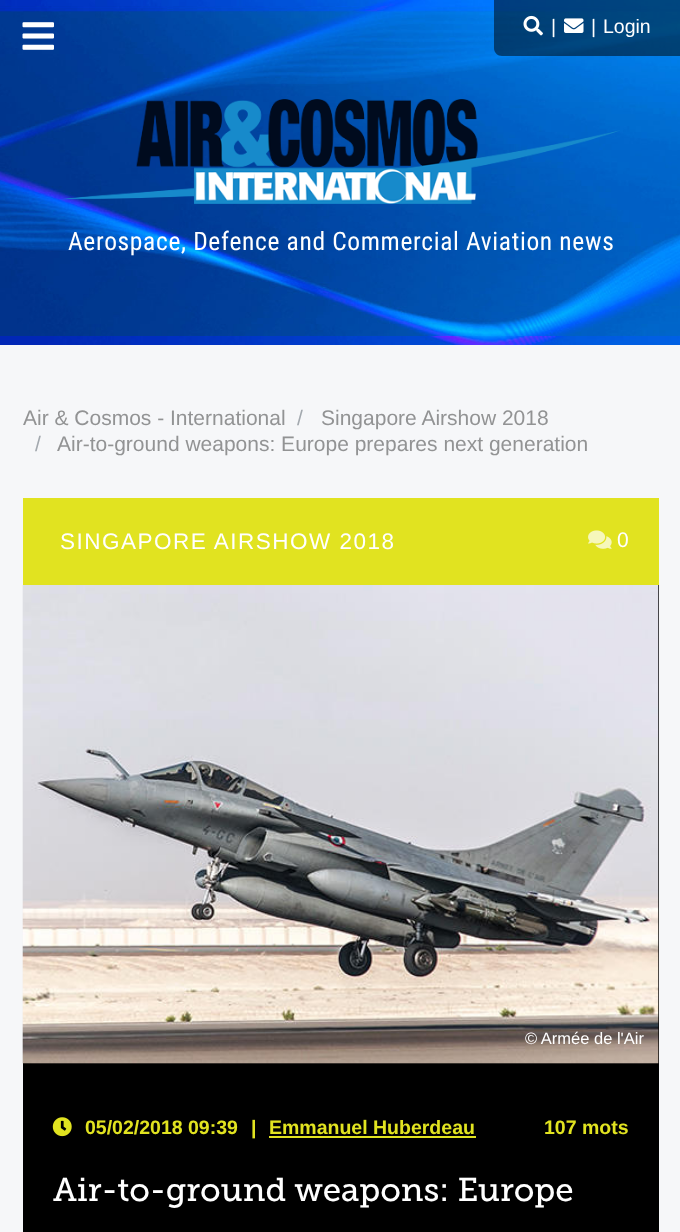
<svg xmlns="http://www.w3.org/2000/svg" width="680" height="1232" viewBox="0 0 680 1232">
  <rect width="100%" height="100%" fill="#fff"/>
  <image x="0" y="0" width="680" height="345" href="img/4.png"/>
  <path d="M494 0H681V56H502C497.5 56 494 52.5 494 48Z" fill="#00000080"/>
  <image x="523" y="15" width="20" height="21" href="img/1.png"/>
  <image x="564" y="18" width="20" height="15" href="img/2.png"/>
  <image x="22" y="22" width="32" height="28" href="img/3.png"/>
  <image x="60" y="99" width="560" height="105" href="img/5.png"/>
  <path d="M0 345h680v887H0z" fill="#f6f7f9"/>
  <path d="M23 585h636v647H23z" fill="#000"/>
  <path d="M23 498h636v87H23z" fill="#e1e320"/>
  <image x="588" y="530" width="24" height="19" href="img/6.png"/>
  <image x="22" y="585" width="637" height="479" href="img/7.png"/>
  <image x="22" y="585" width="637" height="479" href="img/8.png"/>
  <image x="52" y="1117" width="20" height="20" href="img/9.png"/>
  <path d="M269 1136h207v2H269z" fill="#e1e320"/>
  <g font-family="Liberation Sans" font-size="19.5" fill="#fff">
    <text x="551" y="33">|</text>
    <text x="591" y="33">|</text>
    <text x="603" y="33">Login</text>
  </g>
  <text x="68" y="250" font-family="Roboto Condensed" font-size="25.5" letter-spacing="0.65" fill="#fff">Aerospace, Defence and Commercial Aviation news</text>
  <text x="23" y="425" font-family="Liberation Sans" font-size="21" fill="#929394">Air &amp; Cosmos - International</text>
  <text x="297" y="425" font-family="Liberation Sans" font-size="21" fill="#a3a9af">/</text>
  <text x="321" y="425" font-family="Liberation Sans" font-size="21" fill="#929394">Singapore Airshow 2018</text>
  <text x="35" y="451" font-family="Liberation Sans" font-size="21" fill="#a3a9af">/</text>
  <text x="57" y="451" font-family="Liberation Sans" font-size="21" fill="#929394">Air-to-ground weapons: Europe prepares next generation</text>
  <text x="60" y="549" font-family="Liberation Sans" font-size="22.5" letter-spacing="1.5" fill="#fff">SINGAPORE AIRSHOW 2018</text>
  <text x="617" y="547" font-family="Liberation Sans" font-size="21" fill="#fff">0</text>
  <text x="525" y="1044" font-family="Liberation Sans" font-size="16.5" fill="#fff">© Armée de l'Air</text>
  <g font-family="Liberation Sans" font-size="19.5" font-weight="bold" fill="#e1e320">
    <text x="85" y="1134">05/02/2018 09:39</text>
    <text x="251" y="1134">|</text>
    <text x="269" y="1134">Emmanuel Huberdeau</text>
    <text x="544" y="1134">107 mots</text>
  </g>
  <text x="53" y="1201" font-family="Museo Slab" font-size="33" fill="#fff">Air-to-ground weapons: Europe</text>
</svg>
